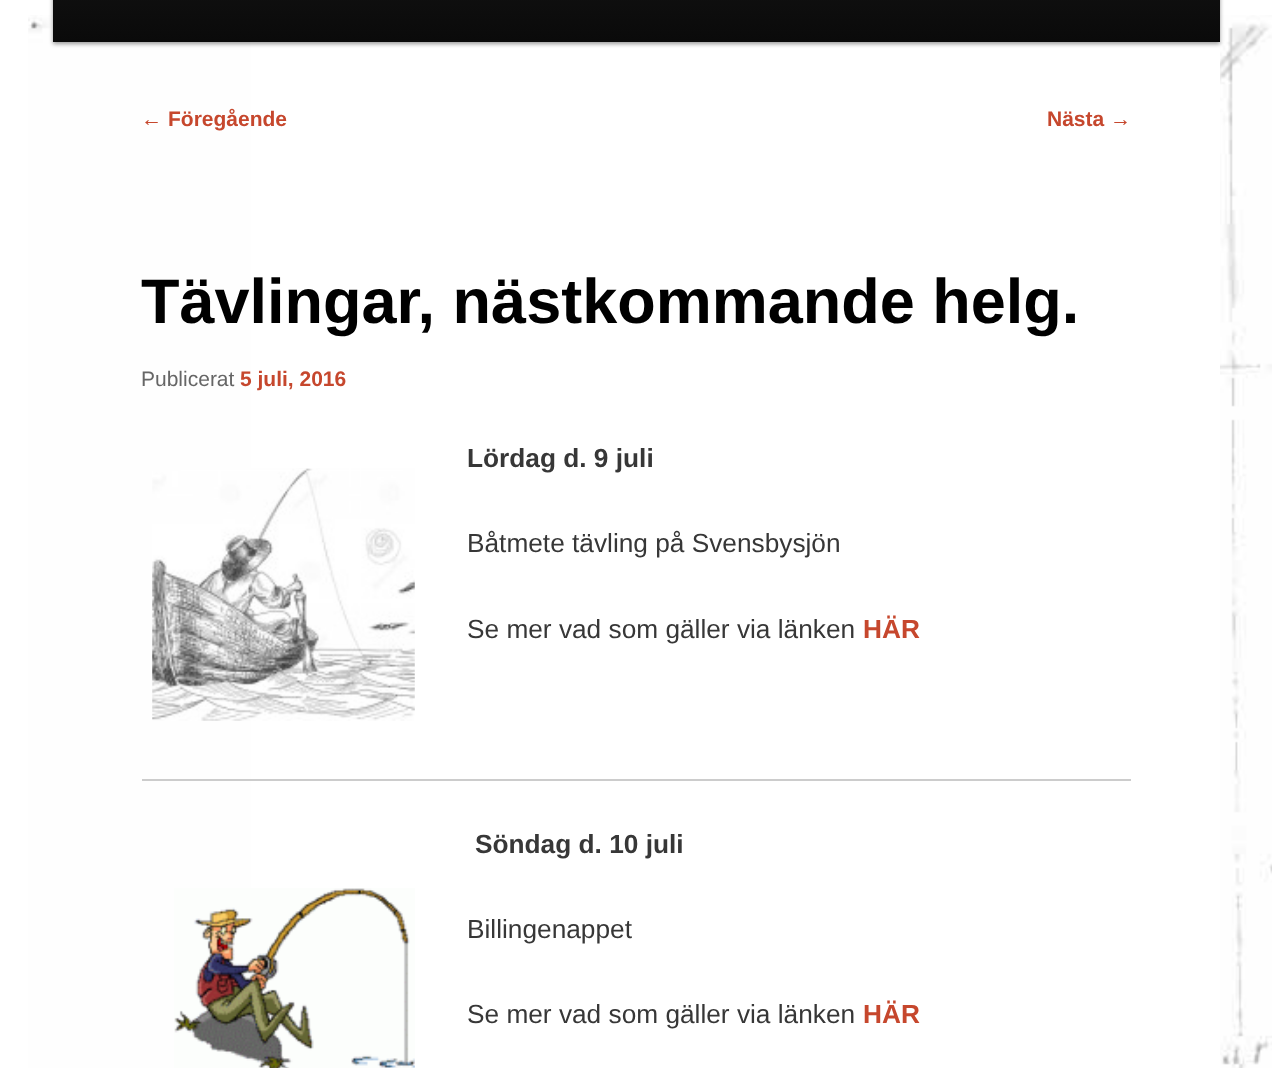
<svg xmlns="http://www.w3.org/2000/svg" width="1272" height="1068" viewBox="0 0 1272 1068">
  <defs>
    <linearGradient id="g1" gradientUnits="userSpaceOnUse" x1="636" y1="-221" x2="636" y2="42"><stop offset="0" stop-color="#252525"/><stop offset="1" stop-color="#0a0a0a"/></linearGradient>
  </defs>
  <rect width="100%" height="100%" fill="#fff"/>
  <image x="28" y="15" width="1244" height="1053" href="img/1.png"/>
  <path d="M251 42h969v1026H251z" fill="#fff"/>
  <path d="M53 -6h1167v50H53z" fill="#00000066" filter="blur(2px)"/>
  <path d="M53 0h1167v42H53z" fill="url(#g1)"/>
  <image x="152" y="468" width="263" height="253" href="img/2.png"/>
  <path d="M142 779h989v2H142z" fill="#ccc"/>
  <image x="174" y="888" width="241" height="180" href="img/3.png"/>
  <text x="141" y="126" font-family="Liberation Sans" font-size="21" fill="#c6472d">←</text>
  <g font-family="Liberation Sans" font-size="21" font-weight="bold" fill="#c6472d">
    <text x="168" y="126">Föregående</text>
    <text x="1047" y="126">Nästa</text>
  </g>
  <text x="1110" y="126" font-family="Liberation Sans" font-size="21" fill="#c6472d">→</text>
  <text x="141" y="323" font-family="Liberation Sans" font-size="63" font-weight="bold" fill="#000">Tävlingar, nästkommande helg.</text>
  <text x="141" y="386" font-family="Liberation Sans" font-size="21" fill="#666">Publicerat</text>
  <text x="240" y="386" font-family="Liberation Sans" font-size="21" font-weight="bold" fill="#c6472d">5 juli, 2016</text>
  <text x="467" y="467" font-family="Liberation Sans" font-size="26.25" font-weight="bold" fill="#373737">Lördag d. 9 juli</text>
  <g font-family="Liberation Sans" font-size="26.25" fill="#373737">
    <text x="467" y="552">Båtmete tävling på Svensbysjön</text>
    <text x="467" y="638">Se mer vad som gäller via länken</text>
  </g>
  <text x="863" y="638" font-family="Liberation Sans" font-size="26.25" font-weight="bold" fill="#c6472d">HÄR</text>
  <text x="475" y="853" font-family="Liberation Sans" font-size="26.25" font-weight="bold" fill="#373737">Söndag d. 10 juli</text>
  <g font-family="Liberation Sans" font-size="26.25" fill="#373737">
    <text x="467" y="938">Billingenappet</text>
    <text x="467" y="1023">Se mer vad som gäller via länken</text>
  </g>
  <text x="863" y="1023" font-family="Liberation Sans" font-size="26.25" font-weight="bold" fill="#c6472d">HÄR</text>
</svg>
